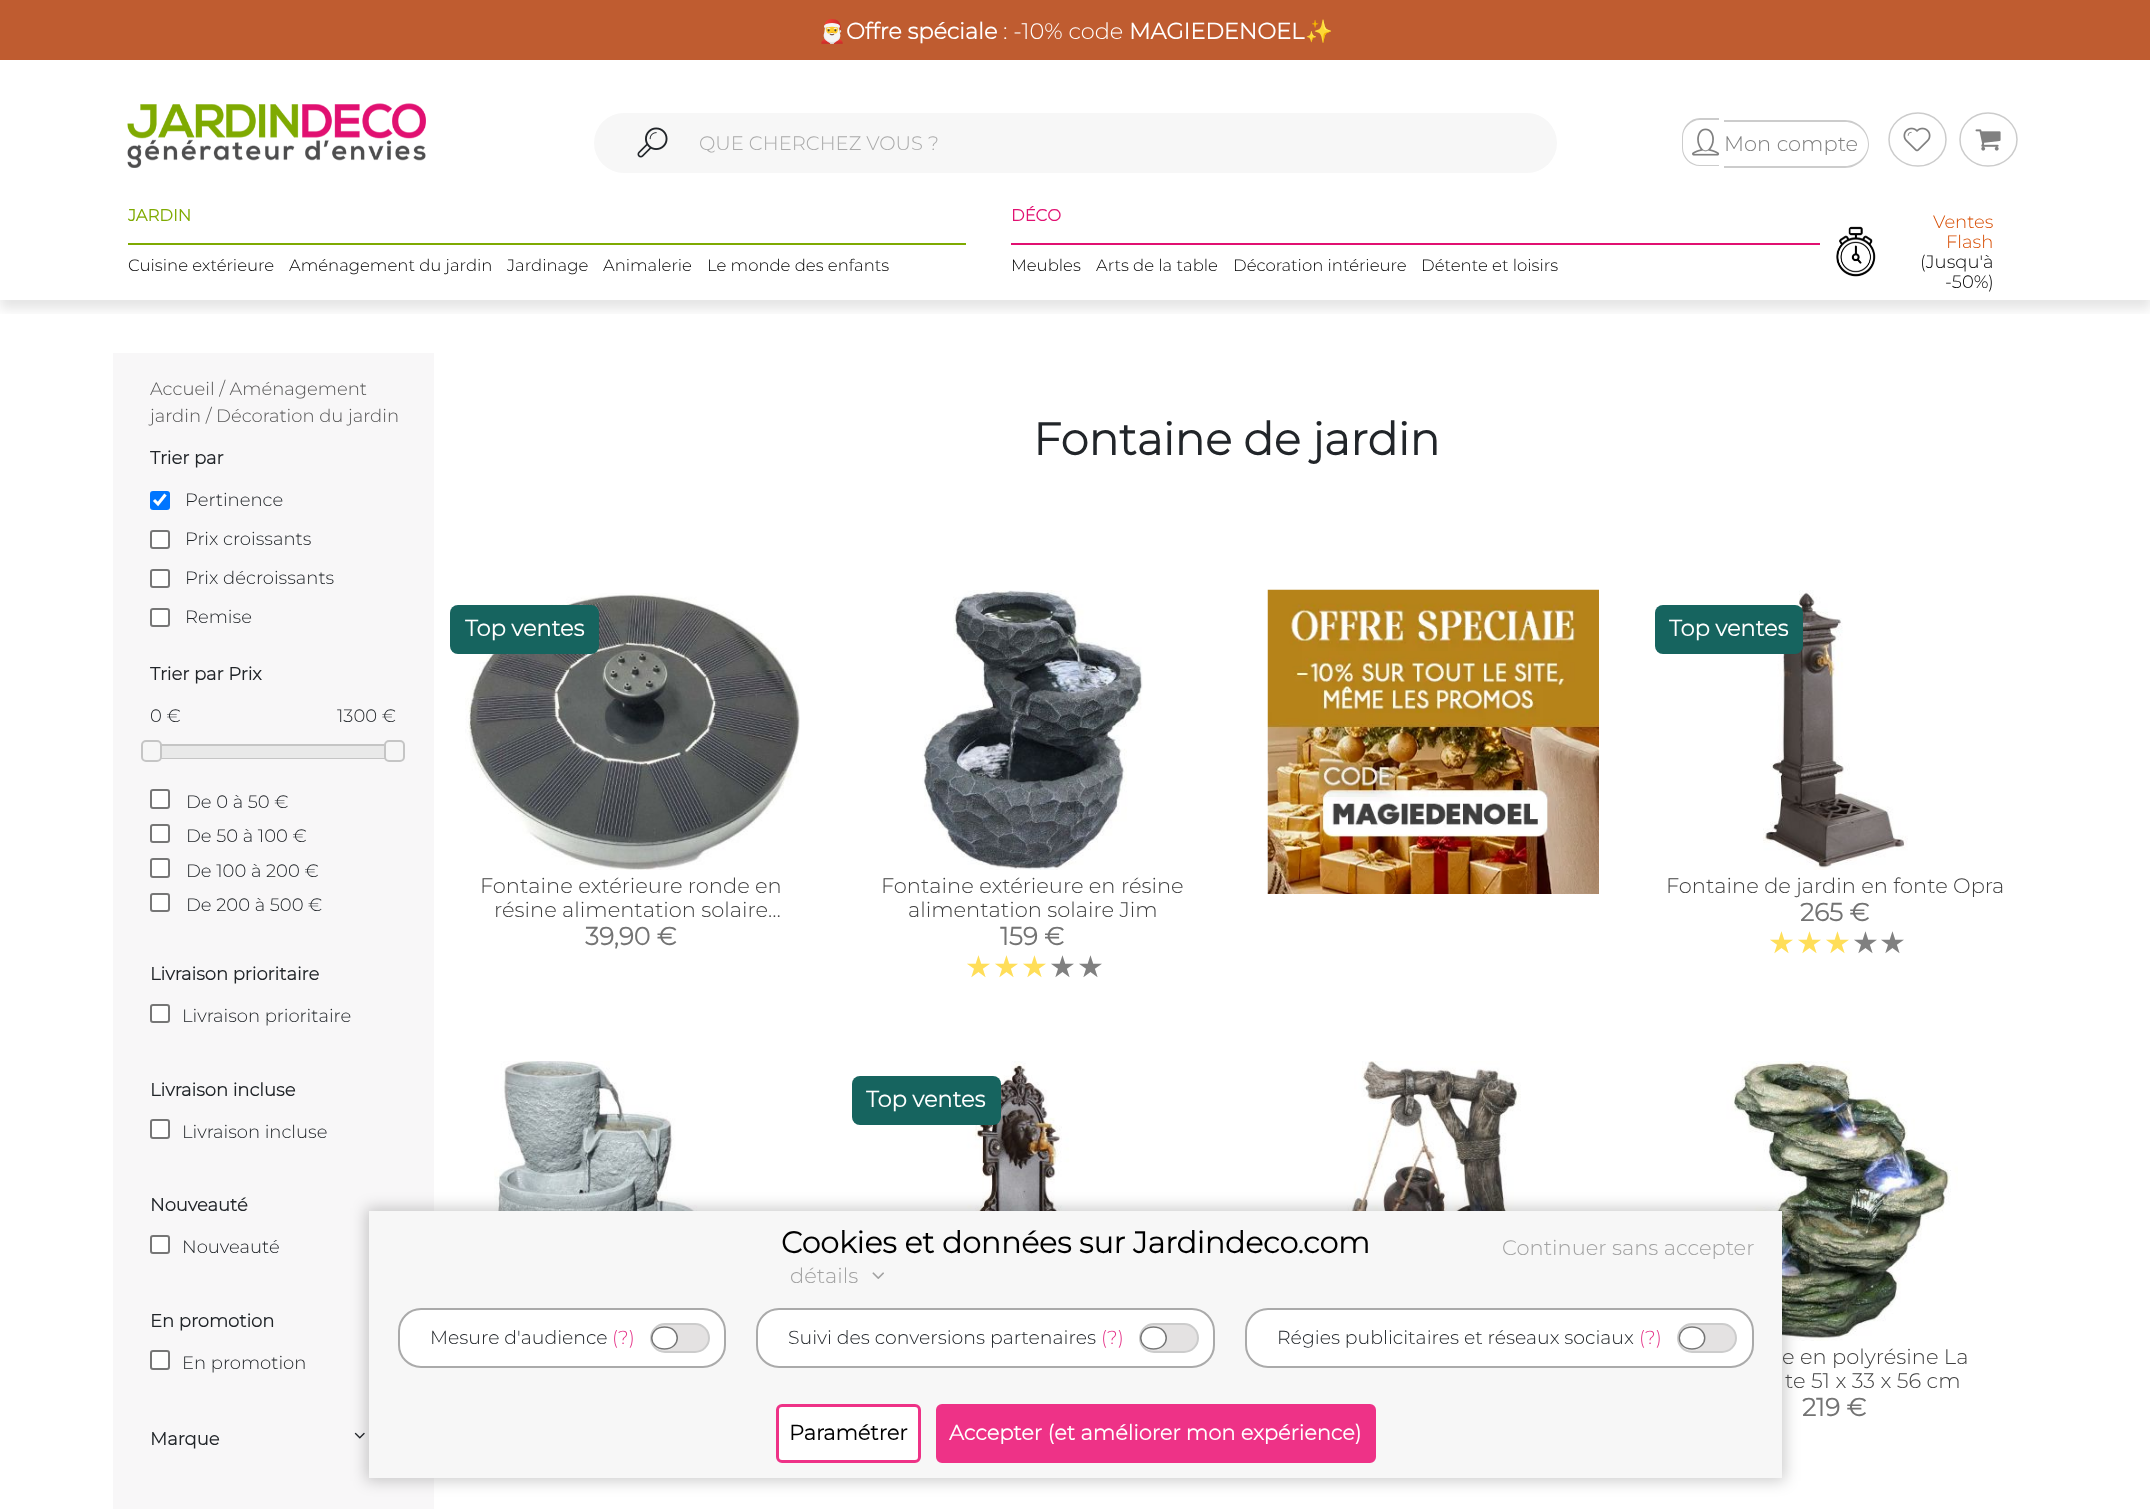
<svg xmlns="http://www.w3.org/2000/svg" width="2150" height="1509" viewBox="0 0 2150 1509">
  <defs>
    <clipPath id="clip1"><path d="M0 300h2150v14H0z"/></clipPath>
  </defs>
  <rect width="100%" height="100%" fill="#fff"/>
  <g clip-path="url(#clip1)">
    <path d="M0 9h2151v300H0z" fill="#0000001a" filter="blur(6px)"/>
  </g>
  <path d="M0 0h2150v60H0z" fill="#bf5c30"/>
  <image x="127" y="103" width="299" height="65" href="img/1.png"/>
  <rect x="594" y="113" width="963" height="60" rx="30" fill="#f7f7f7"/>
  <image x="637" y="127" width="31" height="31" href="img/2.png"/>
  <path d="M1700 118H1719V166H1700C1690 166 1682 158 1682 148V137C1682 127 1690 118 1700 118ZM1700 120H1719V165H1700C1691 165 1683 157 1683 148V137C1683 128 1691 120 1700 120Z" fill="#ccc" fill-rule="evenodd"/>
  <path d="M1724 120H1845C1858 120 1869 131 1869 144C1869 157 1858 168 1845 168H1724ZM1724 122H1845C1857 122 1868 132 1868 144C1868 156 1857 166 1845 166H1724Z" fill="#ccc" fill-rule="evenodd"/>
  <image x="1692" y="128" width="28" height="28" href="img/3.png"/>
  <path d="M1918 113C1933.5 113 1946 125 1946 139.5C1946 154 1933.5 166 1918 166C1902 166 1889 154 1889 139.5C1889 125 1902 113 1918 113Z" fill="none" stroke="#ccc" stroke-width="1.5"/>
  <image x="1903" y="127" width="28" height="25" href="img/4.png"/>
  <path d="M1988 113C2004 113 2017 125 2017 139.5C2017 154 2004 166 1988 166C1972.5 166 1960 154 1960 139.5C1960 125 1972.5 113 1988 113Z" fill="none" stroke="#ccc" stroke-width="1.5"/>
  <image x="1975" y="129" width="26" height="22" href="img/5.png"/>
  <path d="M128 243h838v2H128z" fill="#7faa01"/>
  <path d="M1011 243h809v2H1011z" fill="#e11071"/>
  <image x="1836" y="226" width="40" height="51" href="img/6.png"/>
  <path d="M113 353h321v1156H113z" fill="#f8f7f8"/>
  <rect x="150" y="491" width="20" height="19" rx="3" fill="#0075ff"/>
  <path d="M154 500L158 504L165.5 494.5" fill="none" stroke="#fff" stroke-width="3.1"/>
  <rect x="151" y="531" width="18" height="17" rx="2" fill="#fff" stroke="#767676" stroke-width="2"/>
  <rect x="151" y="570" width="18" height="17" rx="2" fill="#fff" stroke="#767676" stroke-width="2"/>
  <rect x="151" y="609" width="18" height="17" rx="2" fill="#fff" stroke="#767676" stroke-width="2"/>
  <path d="M151 745h244v13H151z" fill="none" stroke="#c5c5c5" stroke-width="2"/>
  <path d="M161 746h224v12H161z" fill="#e9e9e9"/>
  <rect x="142" y="741" width="19" height="20" rx="4" fill="#f6f6f6" stroke="#c5c5c5" stroke-width="2"/>
  <rect x="385" y="741" width="19" height="20" rx="4" fill="#f6f6f6" stroke="#c5c5c5" stroke-width="2"/>
  <rect x="151" y="790" width="18" height="18" rx="2" fill="#fff" stroke="#767676" stroke-width="2"/>
  <rect x="151" y="825" width="18" height="17" rx="2" fill="#fff" stroke="#767676" stroke-width="2"/>
  <rect x="151" y="859" width="18" height="18" rx="2" fill="#fff" stroke="#767676" stroke-width="2"/>
  <rect x="151" y="894" width="18" height="17" rx="2" fill="#fff" stroke="#767676" stroke-width="2"/>
  <rect x="151" y="1005" width="18" height="17" rx="2" fill="#fff" stroke="#767676" stroke-width="2"/>
  <rect x="151" y="1120" width="18" height="18" rx="2" fill="#fff" stroke="#767676" stroke-width="2"/>
  <rect x="151" y="1236" width="18" height="17" rx="2" fill="#fff" stroke="#767676" stroke-width="2"/>
  <rect x="151" y="1351" width="18" height="18" rx="2" fill="#fff" stroke="#767676" stroke-width="2"/>
  <image x="354" y="1432" width="11" height="7" href="img/7.png"/>
  <image x="465" y="593" width="335" height="277" href="img/8.png"/>
  <rect x="450" y="605" width="149" height="49" rx="8" fill="#16645f"/>
  <image x="922" y="590" width="221" height="280" href="img/9.png"/>
  <image x="1267" y="589" width="332" height="305" href="img/10.png"/>
  <image x="1763" y="590" width="145" height="280" href="img/11.png"/>
  <rect x="1655" y="605" width="148" height="49" rx="8" fill="#16645f"/>
  <image x="494" y="1061" width="268" height="150" href="img/12.png"/>
  <image x="961" y="1061" width="137" height="150" href="img/13.png"/>
  <rect x="852" y="1076" width="149" height="49" rx="8" fill="#16645f"/>
  <image x="1347" y="1061" width="174" height="150" href="img/14.png"/>
  <image x="1713" y="1061" width="245" height="280" href="img/15.png"/>
  <path d="M366 1208h1419v273H366z" fill="#00000033" filter="blur(7.5px)"/>
  <path d="M369 1211h1413v267H369z" fill="#f7f7f7"/>
  <image x="872" y="1272" width="12" height="7" href="img/16.png"/>
  <rect x="777.5" y="1405.5" width="142" height="56" rx="4.5" fill="#fff" stroke="#ee3287" stroke-width="3"/>
  <rect x="937.5" y="1405.5" width="437" height="56" rx="4.5" fill="#ee3287" stroke="#ee3287" stroke-width="3"/>
  <rect x="399" y="1309" width="326" height="58" rx="22" fill="#fff" stroke="#aaa" stroke-width="2"/>
  <rect x="651" y="1324" width="58" height="28" rx="14" fill="#e4e2e2" stroke="#ccc" stroke-width="2"/>
  <ellipse cx="664.5" cy="1338" rx="13.5" ry="12" fill="#fff"/>
  <path d="M664.5 1327C681.5 1327 681.5 1349 664.5 1349C647.5 1349 647.5 1327 664.5 1327Z" fill="none" stroke="#757575" stroke-width="1.5"/>
  <rect x="757" y="1309" width="457" height="58" rx="22" fill="#fff" stroke="#aaa" stroke-width="2"/>
  <rect x="1140" y="1324" width="58" height="28" rx="14" fill="#e4e2e2" stroke="#ccc" stroke-width="2"/>
  <ellipse cx="1153.5" cy="1338" rx="13.5" ry="12" fill="#fff"/>
  <path d="M1153.5 1327C1170.5 1327 1170.5 1349 1153.5 1349C1136.5 1349 1136.5 1327 1153.5 1327Z" fill="none" stroke="#757575" stroke-width="1.5"/>
  <rect x="1246" y="1309" width="507" height="58" rx="22" fill="#fff" stroke="#aaa" stroke-width="2"/>
  <rect x="1678" y="1324" width="58" height="28" rx="14" fill="#e4e2e2" stroke="#ccc" stroke-width="2"/>
  <ellipse cx="1692" cy="1338" rx="13.5" ry="12" fill="#fff"/>
  <path d="M1692 1327C1709 1327 1709 1349 1692 1349C1675 1349 1675 1327 1692 1327Z" fill="none" stroke="#757575" stroke-width="1.5"/>
  <text x="818" y="39" font-family="Noto Color Emoji" font-size="22.5" fill="#fff">🎅</text>
  <text x="846" y="39" font-family="Montserrat" font-size="22.5" font-weight="bold" fill="#fff">Offre spéciale</text>
  <text x="1003" y="39" font-family="Montserrat" font-size="22.5" font-weight="300" fill="#fff">: -10% code</text>
  <text x="1129" y="39" font-family="Montserrat" font-size="22.5" font-weight="bold" fill="#fff">MAGIEDENOEL</text>
  <text x="1305" y="39" font-family="Noto Color Emoji" font-size="22.5" fill="#fff">✨</text>
  <text x="699" y="150" font-family="Montserrat" font-size="19.5" font-weight="300" fill="#aaa">QUE CHERCHEZ VOUS ?</text>
  <text x="1724" y="151" font-family="Montserrat" font-size="21" font-weight="300" fill="#808080">Mon compte</text>
  <text x="128" y="221" font-family="Montserrat" font-size="16.5" font-weight="bold" fill="#7faa01">JARDIN</text>
  <g font-family="Montserrat" font-size="16.5" font-weight="300" fill="#000">
    <text x="128" y="271">Cuisine extérieure</text>
    <text x="289" y="271">Aménagement du jardin</text>
    <text x="507" y="271">Jardinage</text>
    <text x="603" y="271">Animalerie</text>
    <text x="707" y="271">Le monde des enfants</text>
  </g>
  <text x="1011" y="221" font-family="Montserrat" font-size="16.5" font-weight="bold" fill="#e11071">DÉCO</text>
  <g font-family="Montserrat" font-size="16.5" font-weight="300" fill="#000">
    <text x="1011" y="271">Meubles</text>
    <text x="1096" y="271">Arts de la table</text>
    <text x="1233" y="271">Décoration intérieure</text>
    <text x="1421" y="271">Détente et loisirs</text>
  </g>
  <g font-family="Montserrat" font-size="18" font-weight="300" fill="#d74c00">
    <text x="1933" y="228">Ventes</text>
    <text x="1946" y="248">Flash</text>
  </g>
  <g font-family="Montserrat" font-size="18" font-weight="300" fill="#000">
    <text x="1920" y="268">(Jusqu'à</text>
    <text x="1945" y="288">-50%)</text>
  </g>
  <g font-family="Montserrat" font-size="18" font-weight="300" fill="#555">
    <text x="150" y="395">Accueil / Aménagement</text>
    <text x="150" y="422">jardin / Décoration du jardin</text>
  </g>
  <text x="150" y="464" font-family="Montserrat" font-size="18" font-weight="bold" fill="#212529">Trier par</text>
  <g font-family="Montserrat" font-size="18" font-weight="300" fill="#212529">
    <text x="185" y="506">Pertinence</text>
    <text x="185" y="545">Prix croissants</text>
    <text x="185" y="584">Prix décroissants</text>
    <text x="185" y="623">Remise</text>
  </g>
  <text x="150" y="680" font-family="Montserrat" font-size="18" font-weight="bold" fill="#212529">Trier par Prix</text>
  <g font-family="Montserrat" font-size="18" font-weight="300" fill="#212529">
    <text x="150" y="722">0 €</text>
    <text x="337" y="722">1300 €</text>
    <text x="186" y="808">De 0 à 50 €</text>
    <text x="186" y="842">De 50 à 100 €</text>
    <text x="186" y="877">De 100 à 200 €</text>
    <text x="186" y="911">De 200 à 500 €</text>
  </g>
  <text x="150" y="980" font-family="Montserrat" font-size="18" font-weight="bold" fill="#212529">Livraison prioritaire</text>
  <text x="182" y="1022" font-family="Montserrat" font-size="18" font-weight="300" fill="#212529">Livraison prioritaire</text>
  <text x="150" y="1096" font-family="Montserrat" font-size="18" font-weight="bold" fill="#212529">Livraison incluse</text>
  <text x="182" y="1138" font-family="Montserrat" font-size="18" font-weight="300" fill="#212529">Livraison incluse</text>
  <text x="150" y="1211" font-family="Montserrat" font-size="18" font-weight="bold" fill="#212529">Nouveauté</text>
  <text x="182" y="1253" font-family="Montserrat" font-size="18" font-weight="300" fill="#212529">Nouveauté</text>
  <text x="150" y="1327" font-family="Montserrat" font-size="18" font-weight="bold" fill="#212529">En promotion</text>
  <text x="182" y="1369" font-family="Montserrat" font-size="18" font-weight="300" fill="#212529">En promotion</text>
  <text x="150" y="1445" font-family="Montserrat" font-size="18" font-weight="bold" fill="#212529">Marque</text>
  <text x="1033" y="455" font-family="Montserrat" font-size="45" font-weight="bold" fill="#212529">Fontaine de jardin</text>
  <text x="465" y="636" font-family="Montserrat" font-size="22.5" font-weight="bold" fill="#fff">Top ventes</text>
  <g font-family="Montserrat" font-size="21" font-weight="300" fill="#3f3f3f">
    <text x="480" y="893">Fontaine extérieure ronde en</text>
    <text x="494" y="917">résine alimentation solaire…</text>
  </g>
  <text x="585" y="945" font-family="Montserrat" font-size="25" font-weight="bold" fill="#737373">39,90 €</text>
  <g font-family="Montserrat" font-size="21" font-weight="300" fill="#3f3f3f">
    <text x="881" y="893">Fontaine extérieure en résine</text>
    <text x="908" y="917">alimentation solaire Jim</text>
  </g>
  <text x="1000" y="945" font-family="Montserrat" font-size="25" font-weight="bold" fill="#737373">159 €</text>
  <g font-family="DejaVu Sans" font-size="30" fill="#ffde59">
    <text x="965" y="977">★</text>
    <text x="993" y="977">★</text>
    <text x="1021" y="977">★</text>
  </g>
  <g font-family="DejaVu Sans" font-size="30" fill="#808080">
    <text x="1049" y="977">★</text>
    <text x="1077" y="977">★</text>
  </g>
  <text x="1669" y="636" font-family="Montserrat" font-size="22.5" font-weight="bold" fill="#fff">Top ventes</text>
  <text x="1666" y="893" font-family="Montserrat" font-size="21" font-weight="300" fill="#3f3f3f">Fontaine de jardin en fonte Opra</text>
  <text x="1800" y="921" font-family="Montserrat" font-size="25" font-weight="bold" fill="#737373">265 €</text>
  <g font-family="DejaVu Sans" font-size="30" fill="#ffde59">
    <text x="1768" y="953">★</text>
    <text x="1796" y="953">★</text>
    <text x="1824" y="953">★</text>
  </g>
  <g font-family="DejaVu Sans" font-size="30" fill="#808080">
    <text x="1852" y="953">★</text>
    <text x="1879" y="953">★</text>
  </g>
  <text x="866" y="1107" font-family="Montserrat" font-size="22.5" font-weight="bold" fill="#fff">Top ventes</text>
  <g font-family="Montserrat" font-size="21" font-weight="300" fill="#3f3f3f">
    <text x="1782" y="1364">e en polyrésine La</text>
    <text x="1785" y="1388">te 51 x 33 x 56 cm</text>
  </g>
  <text x="1802" y="1416" font-family="Montserrat" font-size="25" font-weight="bold" fill="#737373">219 €</text>
  <text x="781" y="1253" font-family="Montserrat" font-size="30" font-weight="bold" fill="#000">Cookies et données sur Jardindeco.com</text>
  <g font-family="Montserrat" font-size="21" font-weight="300" fill="#a1a1a1">
    <text x="790" y="1283">détails</text>
    <text x="1502" y="1255">Continuer sans accepter</text>
  </g>
  <text x="789" y="1440" font-family="Montserrat" font-size="21" font-weight="bold" fill="#000">Paramétrer</text>
  <text x="949" y="1440" font-family="Montserrat" font-size="21" font-weight="bold" fill="#fff">Accepter (et améliorer mon expérience)</text>
  <text x="430" y="1344" font-family="Montserrat" font-size="18.9" font-weight="300" fill="#212529">Mesure d'audience</text>
  <text x="612" y="1344" font-family="Montserrat" font-size="18.9" font-weight="300" fill="#e53388">(?)</text>
  <text x="788" y="1344" font-family="Montserrat" font-size="18.9" font-weight="300" fill="#212529">Suivi des conversions partenaires</text>
  <text x="1101" y="1344" font-family="Montserrat" font-size="18.9" font-weight="300" fill="#e53388">(?)</text>
  <text x="1277" y="1344" font-family="Montserrat" font-size="18.9" font-weight="300" fill="#212529">Régies publicitaires et réseaux sociaux</text>
  <text x="1639" y="1344" font-family="Montserrat" font-size="18.9" font-weight="300" fill="#e53388">(?)</text>
</svg>
